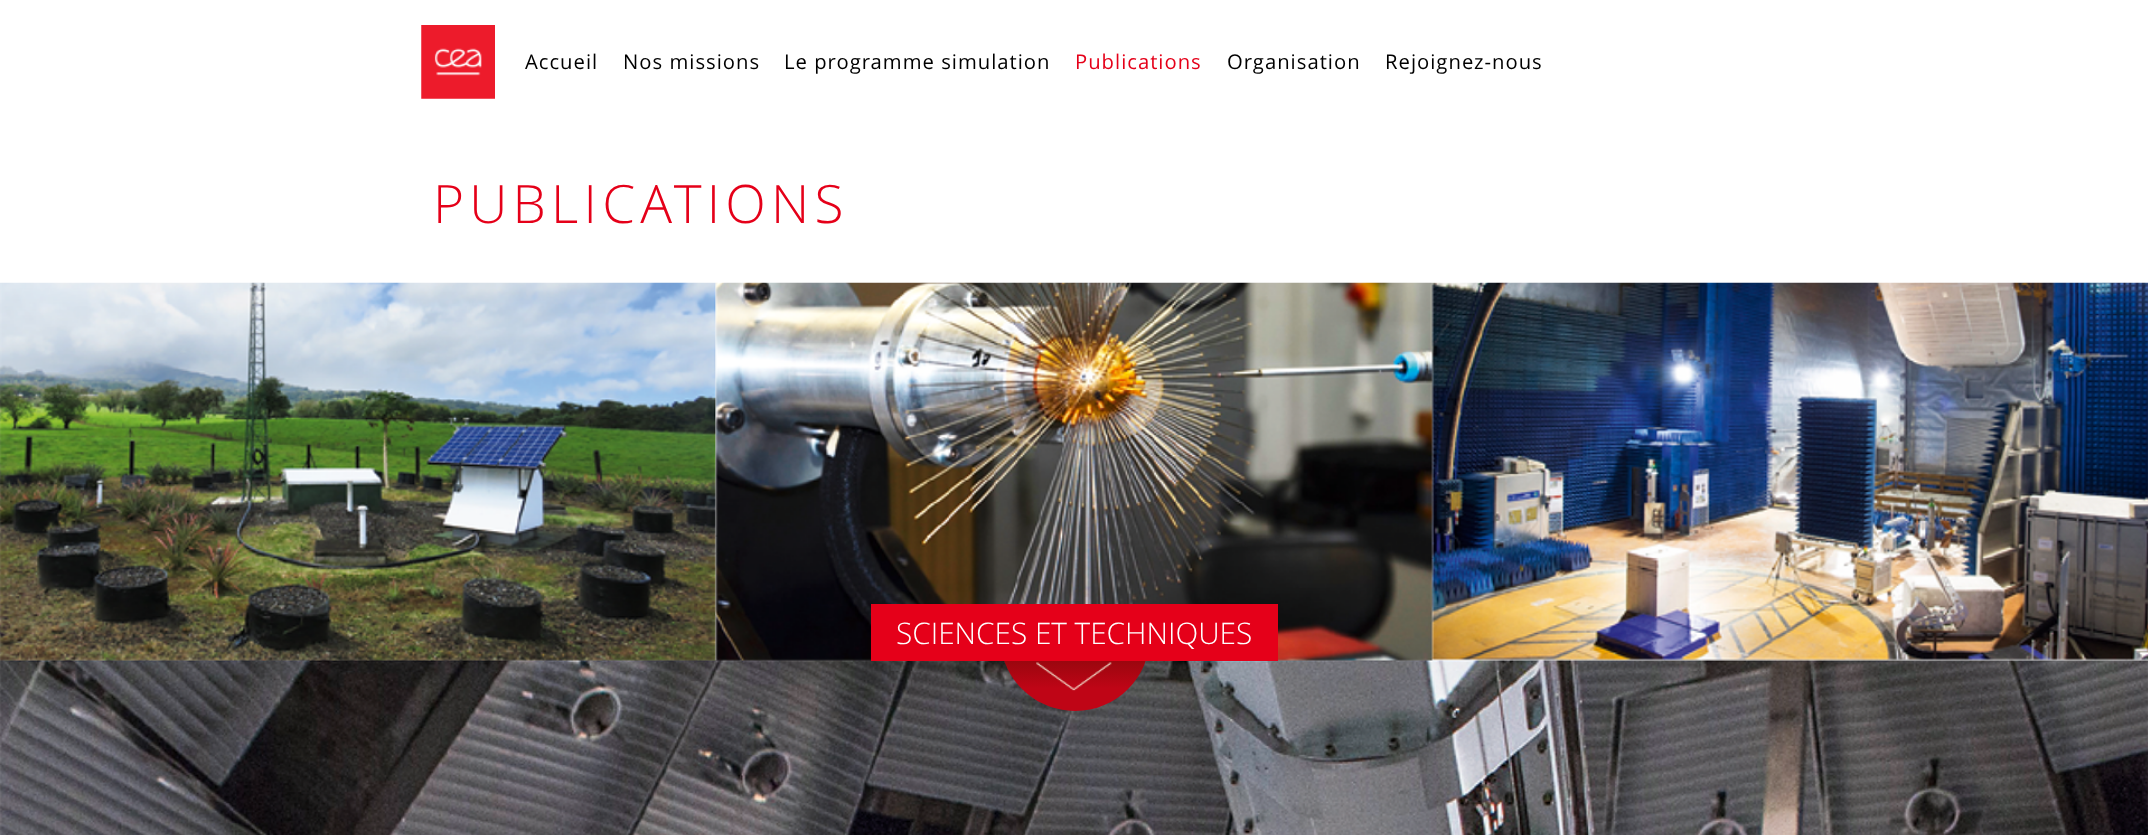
<svg xmlns="http://www.w3.org/2000/svg" width="2148" height="835" viewBox="0 0 2148 835">
  <defs>
    <linearGradient id="g1" gradientUnits="userSpaceOnUse" x1="1075" y1="561" x2="1075" y2="711"><stop offset="0.5" stop-color="#7a0808"/><stop offset="0.85" stop-color="#bf0516"/></linearGradient>
  </defs>
  <rect width="100%" height="100%" fill="#fff"/>
  <image x="421" y="25" width="74" height="74" href="img/1.png"/>
  <image x="0" y="282" width="2148" height="553" href="img/2.png"/>
  <path d="M1000 636H1150C1150 677.5 1116.5 711 1075 711C1033.5 711 1000 677.5 1000 636Z" fill="url(#g1)"/>
  <path d="M871 604h407v57H871z" fill="#e50019"/>
  <image x="1036" y="662" width="76" height="29" href="img/3.png"/>
  <g font-family="Open Sans" font-size="20.25" letter-spacing="1" fill="#000">
    <text x="525" y="69">Accueil</text>
    <text x="623" y="69">Nos missions</text>
    <text x="784" y="69">Le programme simulation</text>
  </g>
  <text x="1075" y="69" font-family="Open Sans" font-size="20.25" letter-spacing="1" fill="#e50019">Publications</text>
  <g font-family="Open Sans" font-size="20.25" letter-spacing="1" fill="#000">
    <text x="1227" y="69">Organisation</text>
    <text x="1385" y="69">Rejoignez-nous</text>
  </g>
  <text x="433" y="223" font-family="Open Sans" font-size="53" font-weight="300" letter-spacing="5.25" fill="#e50019">PUBLICATIONS</text>
  <text x="896" y="644" font-family="Open Sans" font-size="29.75" font-weight="300" fill="#fff">SCIENCES ET TECHNIQUES</text>
</svg>
